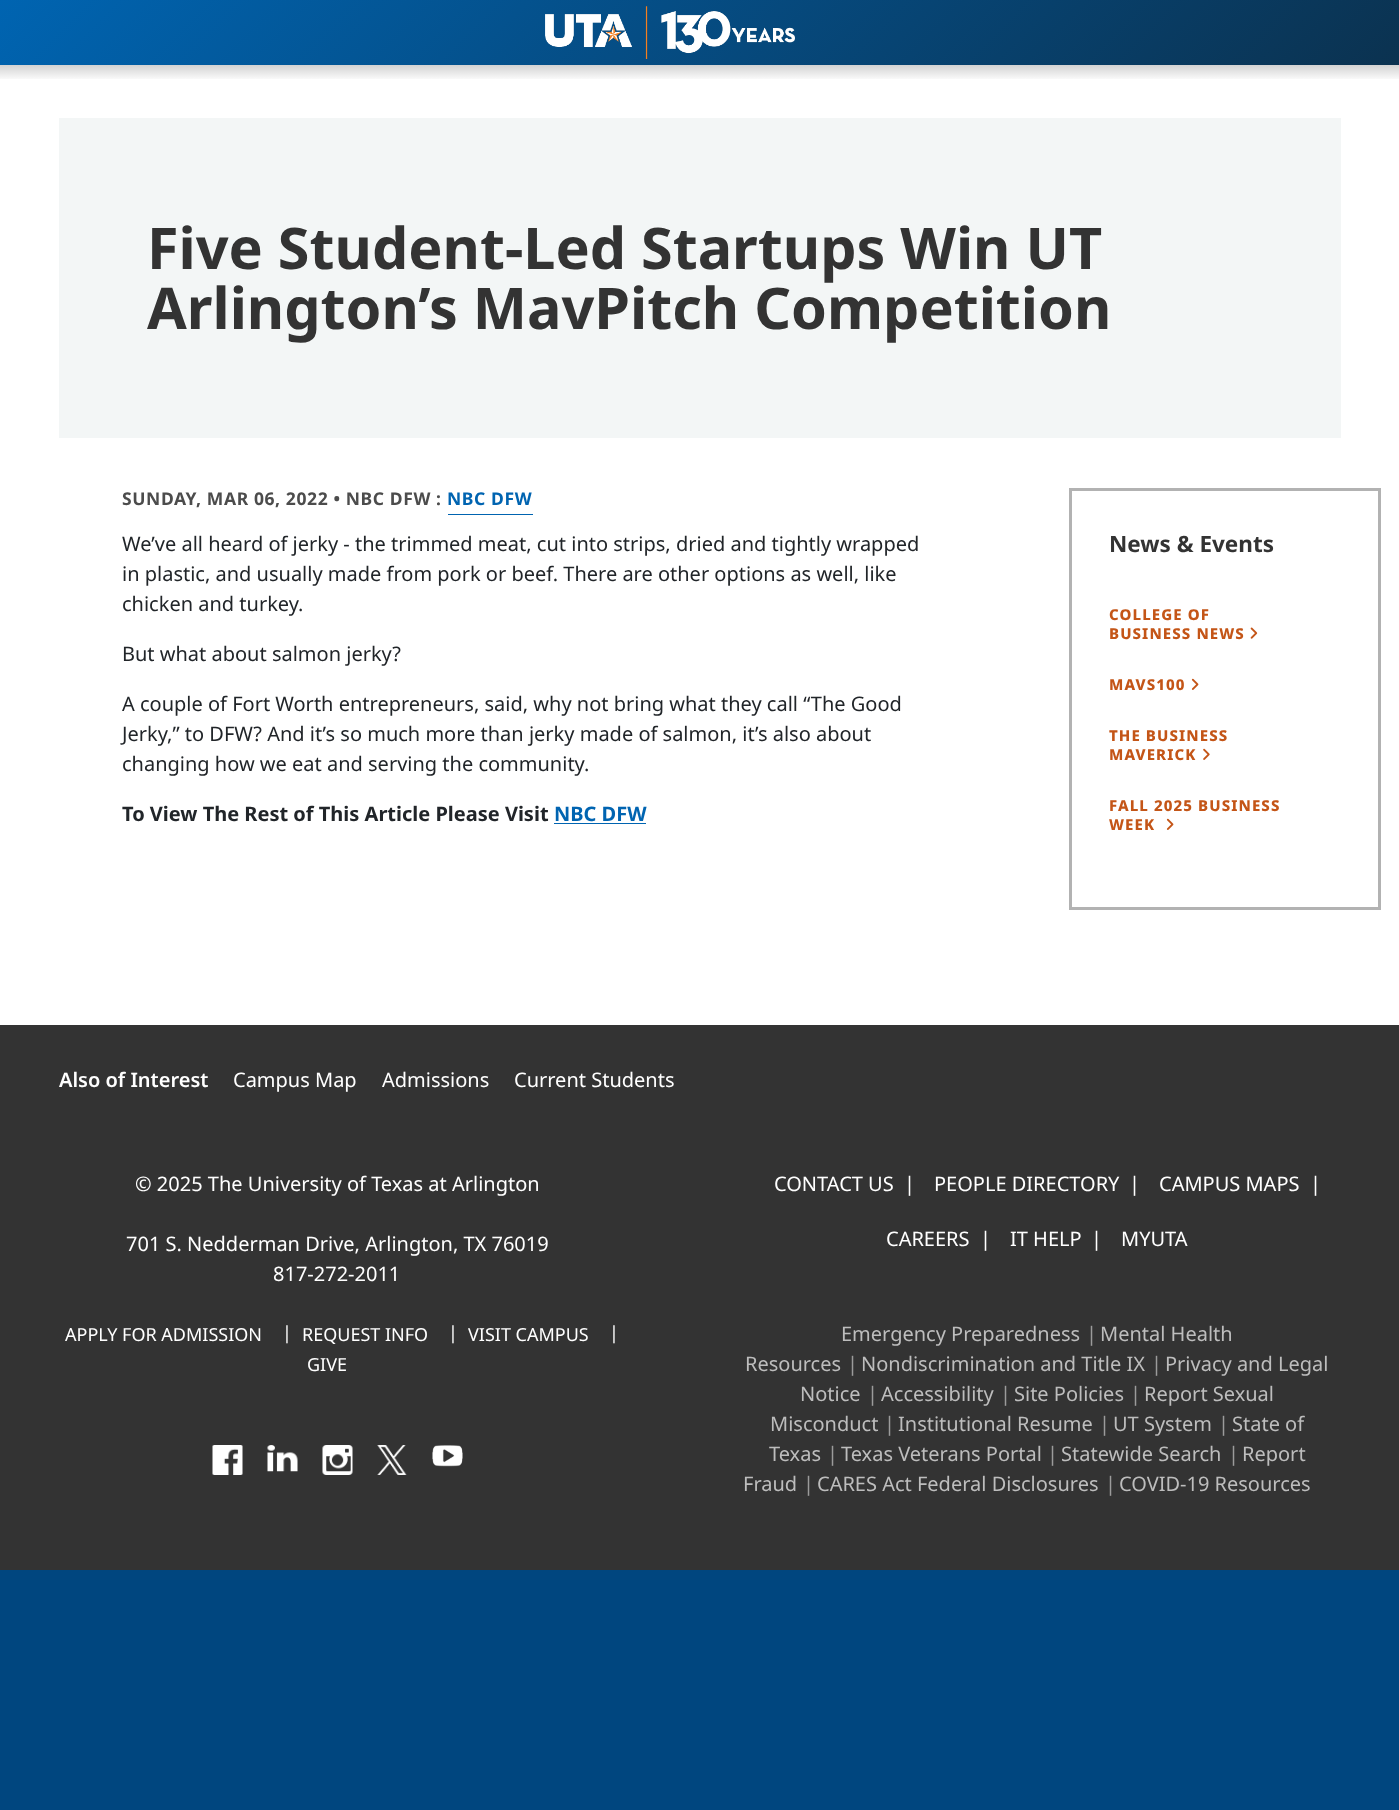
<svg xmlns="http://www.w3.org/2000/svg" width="1399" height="1810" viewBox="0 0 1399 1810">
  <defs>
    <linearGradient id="g1" gradientUnits="userSpaceOnUse" x1="334" y1="-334" x2="1066" y2="399"><stop offset="0" stop-color="#0064b1"/><stop offset="1" stop-color="#0b3250"/></linearGradient>
    <linearGradient id="g2" gradientUnits="userSpaceOnUse" x1="700" y1="0" x2="700" y2="81"><stop offset="0" stop-color="#1f1f1f"/><stop offset="1" stop-color="#1f1f1f" stop-opacity="0"/></linearGradient>
  </defs>
  <rect width="100%" height="100%" fill="#00467f"/>
  <path d="M0 0h1399v65H0z" fill="url(#g1)"/>
  <image x="545" y="6" width="250" height="53" href="img/1.png"/>
  <path d="M0 65h1399v960H0z" fill="#fff"/>
  <path d="M0 65h1399v14H0z" fill="url(#g2)"/>
  <path d="M59 118h1282v320H59z" fill="#f3f6f6"/>
  <path d="M448 514h85v1H448z" fill="#0064b1"/>
  <path d="M554 823h92v1H554z" fill="#0064b1"/>
  <path d="M1070.5 489.5h309v419H1070.5z" fill="none" stroke="#b2b2b2" stroke-width="3"/>
  <image x="1250" y="627" width="8" height="12" href="img/2.png"/>
  <image x="1191" y="678" width="8" height="12" href="img/3.png"/>
  <image x="1203" y="748" width="7" height="12" href="img/4.png"/>
  <image x="1166" y="818" width="8" height="12" href="img/3.png"/>
  <path d="M0 1025h1399v545H0z" fill="#333"/>
  <image x="212" y="1445" width="31" height="30" href="img/5.png"/>
  <image x="267" y="1445" width="31" height="27" href="img/6.png"/>
  <image x="322" y="1445" width="31" height="30" href="img/7.png"/>
  <image x="377" y="1445" width="30" height="30" href="img/8.png"/>
  <image x="432" y="1445" width="31" height="22" href="img/9.png"/>
  <g font-family="Noto Sans" font-size="57.5" font-weight="bold" fill="#333">
    <text x="147" y="269">Five Student-Led Startups Win UT</text>
    <text x="147" y="329">Arlington’s MavPitch Competition</text>
  </g>
  <text x="122" y="505" font-family="Noto Sans" font-size="17.5" font-weight="bold" letter-spacing="0.6" fill="#4c4c4c">SUNDAY, MAR 06, 2022 • NBC DFW :</text>
  <text x="447" y="505" font-family="Noto Sans" font-size="17.5" font-weight="bold" letter-spacing="0.6" fill="#0064b1">NBC DFW</text>
  <g font-family="Noto Sans" font-size="20" fill="#212529">
    <text x="122" y="551">We’ve all heard of jerky - the trimmed meat, cut into strips, dried and tightly wrapped</text>
    <text x="122" y="581">in plastic, and usually made from pork or beef. There are other options as well, like</text>
    <text x="122" y="611">chicken and turkey.</text>
    <text x="122" y="661">But what about salmon jerky?</text>
    <text x="122" y="711">A couple of Fort Worth entrepreneurs, said, why not bring what they call “The Good</text>
    <text x="122" y="741">Jerky,” to DFW? And it’s so much more than jerky made of salmon, it’s also about</text>
    <text x="122" y="771">changing how we eat and serving the community.</text>
  </g>
  <text x="122" y="821" font-family="Noto Sans" font-size="20" font-weight="bold" fill="#212529">To View The Rest of This Article Please Visit</text>
  <text x="554" y="821" font-family="Noto Sans" font-size="20" font-weight="bold" fill="#0064b1">NBC DFW</text>
  <text x="1109" y="552" font-family="Noto Sans" font-size="22.5" font-weight="bold" fill="#333">News &amp; Events</text>
  <g font-family="Noto Sans" font-size="15" font-weight="800" letter-spacing="1.1" fill="#c45517">
    <text x="1109" y="620">COLLEGE OF</text>
    <text x="1109" y="639">BUSINESS NEWS</text>
    <text x="1109" y="690">MAVS100</text>
    <text x="1109" y="741">THE BUSINESS</text>
    <text x="1109" y="760">MAVERICK</text>
    <text x="1109" y="811">FALL 2025 BUSINESS</text>
    <text x="1109" y="830">WEEK</text>
  </g>
  <text x="59" y="1087" font-family="Noto Sans" font-size="20" font-weight="600" fill="#fff">Also of Interest</text>
  <g font-family="Noto Sans" font-size="20" fill="#fff">
    <text x="233" y="1087">Campus Map</text>
    <text x="382" y="1087">Admissions</text>
    <text x="514" y="1087">Current Students</text>
    <text x="135" y="1191">© 2025 The University of Texas at Arlington</text>
    <text x="774" y="1191">CONTACT US</text>
    <text x="904" y="1191">|</text>
    <text x="934" y="1191">PEOPLE DIRECTORY</text>
    <text x="1129" y="1191">|</text>
    <text x="1159" y="1191">CAMPUS MAPS</text>
    <text x="1310" y="1191">|</text>
    <text x="886" y="1246">CAREERS</text>
    <text x="980" y="1246">|</text>
    <text x="1010" y="1246">IT HELP</text>
    <text x="1091" y="1246">|</text>
    <text x="1121" y="1246">MYUTA</text>
    <text x="126" y="1251">701 S. Nedderman Drive, Arlington, TX 76019</text>
    <text x="273" y="1281">817-272-2011</text>
  </g>
  <g font-family="Noto Sans" font-size="18" fill="#fff">
    <text x="65" y="1341">APPLY FOR ADMISSION</text>
    <text x="282" y="1339">|</text>
    <text x="302" y="1341">REQUEST INFO</text>
    <text x="448" y="1339">|</text>
    <text x="468" y="1341">VISIT CAMPUS</text>
    <text x="609" y="1339">|</text>
    <text x="307" y="1371">GIVE</text>
  </g>
  <g font-family="Noto Sans" font-size="20" fill="#bdbdbd">
    <text x="1100" y="1341">Mental Health</text>
    <text x="745" y="1371">Resources</text>
  </g>
  <text x="847" y="1371" font-family="Noto Sans" font-size="20" fill="#9b9b9b">|</text>
  <text x="841" y="1341" font-family="Noto Sans" font-size="20" fill="#bdbdbd">Emergency Preparedness</text>
  <text x="1086" y="1341" font-family="Noto Sans" font-size="20" fill="#9b9b9b">|</text>
  <g font-family="Noto Sans" font-size="20" fill="#bdbdbd">
    <text x="1165" y="1371">Privacy and Legal</text>
    <text x="800" y="1401">Notice</text>
  </g>
  <text x="867" y="1401" font-family="Noto Sans" font-size="20" fill="#9b9b9b">|</text>
  <text x="861" y="1371" font-family="Noto Sans" font-size="20" fill="#bdbdbd">Nondiscrimination and Title IX</text>
  <text x="1151" y="1371" font-family="Noto Sans" font-size="20" fill="#9b9b9b">|</text>
  <g font-family="Noto Sans" font-size="20" fill="#bdbdbd">
    <text x="1144" y="1401">Report Sexual</text>
    <text x="770" y="1431">Misconduct</text>
  </g>
  <text x="884" y="1431" font-family="Noto Sans" font-size="20" fill="#9b9b9b">|</text>
  <text x="881" y="1401" font-family="Noto Sans" font-size="20" fill="#bdbdbd">Accessibility</text>
  <text x="1000" y="1401" font-family="Noto Sans" font-size="20" fill="#9b9b9b">|</text>
  <text x="1014" y="1401" font-family="Noto Sans" font-size="20" fill="#bdbdbd">Site Policies</text>
  <text x="1130" y="1401" font-family="Noto Sans" font-size="20" fill="#9b9b9b">|</text>
  <g font-family="Noto Sans" font-size="20" fill="#bdbdbd">
    <text x="1232" y="1431">State of</text>
    <text x="769" y="1461">Texas</text>
  </g>
  <text x="827" y="1461" font-family="Noto Sans" font-size="20" fill="#9b9b9b">|</text>
  <text x="898" y="1431" font-family="Noto Sans" font-size="20" fill="#bdbdbd">Institutional Resume</text>
  <text x="1099" y="1431" font-family="Noto Sans" font-size="20" fill="#9b9b9b">|</text>
  <text x="1113" y="1431" font-family="Noto Sans" font-size="20" fill="#bdbdbd">UT System</text>
  <text x="1218" y="1431" font-family="Noto Sans" font-size="20" fill="#9b9b9b">|</text>
  <text x="841" y="1461" font-family="Noto Sans" font-size="20" fill="#bdbdbd">Texas Veterans Portal</text>
  <text x="1047" y="1461" font-family="Noto Sans" font-size="20" fill="#9b9b9b">|</text>
  <text x="1061" y="1461" font-family="Noto Sans" font-size="20" fill="#bdbdbd">Statewide Search</text>
  <text x="1228" y="1461" font-family="Noto Sans" font-size="20" fill="#9b9b9b">|</text>
  <g font-family="Noto Sans" font-size="20" fill="#bdbdbd">
    <text x="1242" y="1461">Report</text>
    <text x="743" y="1491">Fraud</text>
  </g>
  <text x="803" y="1491" font-family="Noto Sans" font-size="20" fill="#9b9b9b">|</text>
  <text x="817" y="1491" font-family="Noto Sans" font-size="20" fill="#bdbdbd">CARES Act Federal Disclosures</text>
  <text x="1105" y="1491" font-family="Noto Sans" font-size="20" fill="#9b9b9b">|</text>
  <text x="1119" y="1491" font-family="Noto Sans" font-size="20" fill="#bdbdbd">COVID-19 Resources</text>
</svg>
